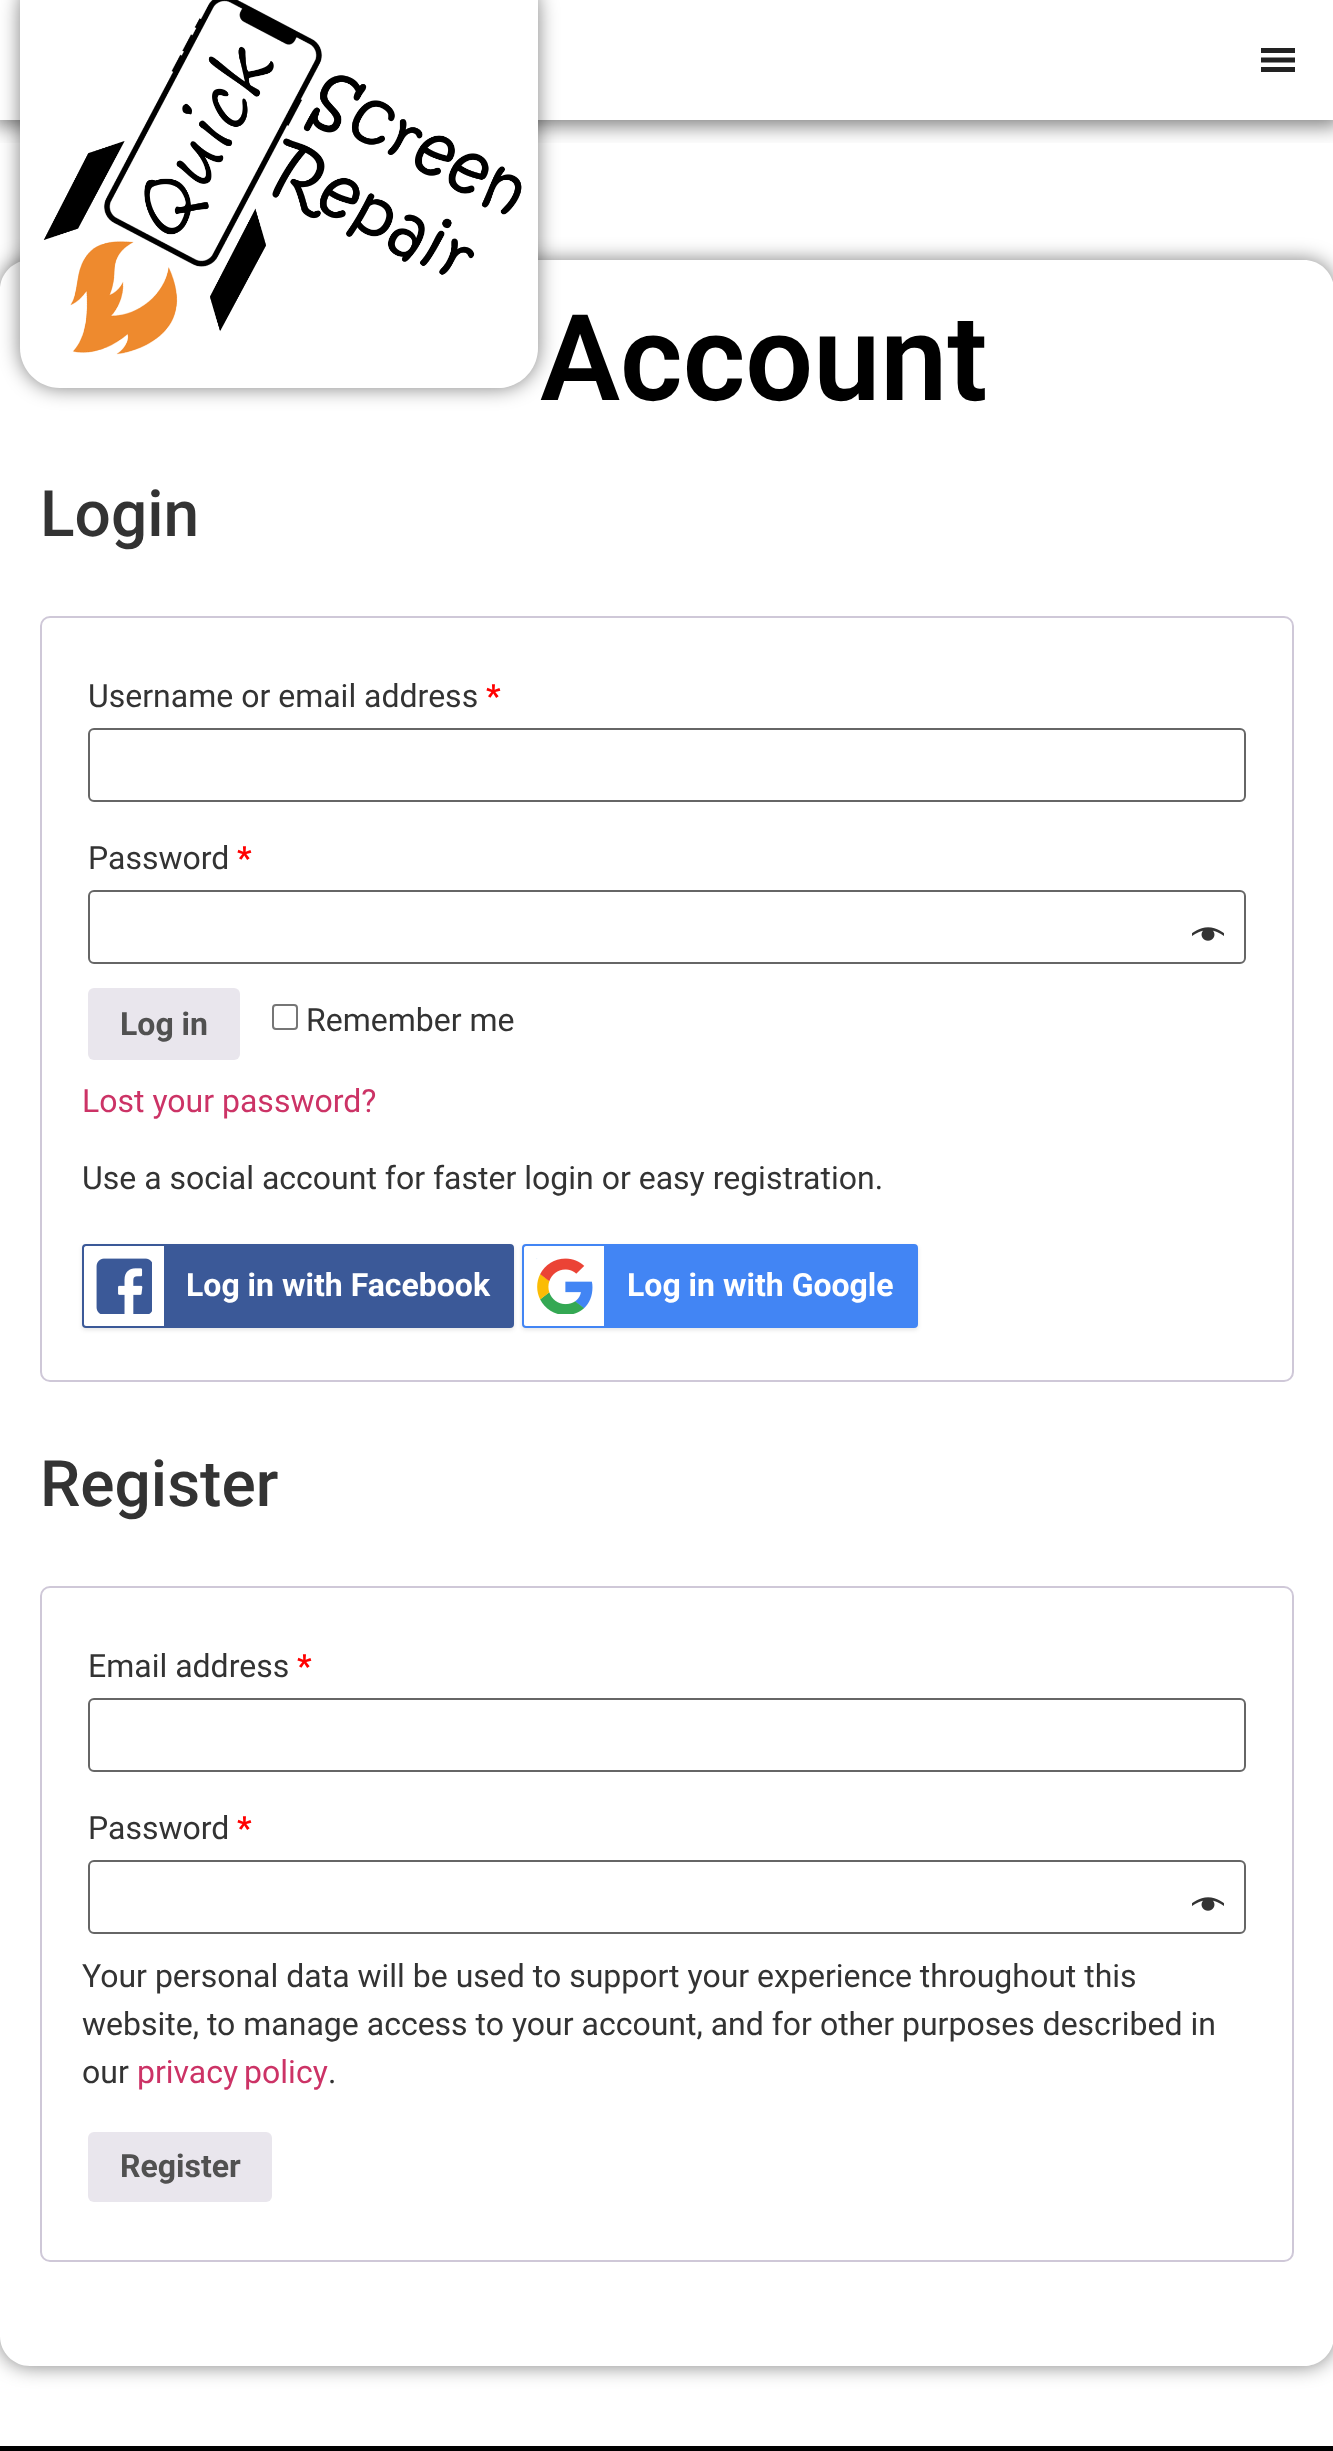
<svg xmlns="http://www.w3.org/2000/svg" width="1333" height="2451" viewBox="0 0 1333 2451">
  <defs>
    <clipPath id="clip1"><path d="M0 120h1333v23H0z"/></clipPath>
    <clipPath id="clip2"><path d="M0 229H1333V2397H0ZM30 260H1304C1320.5 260 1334 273.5 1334 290V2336C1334 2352.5 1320.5 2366 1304 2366H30C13.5 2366 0 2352.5 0 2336V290C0 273.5 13.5 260 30 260Z" clip-rule="evenodd"/></clipPath>
  </defs>
  <rect width="100%" height="100%" fill="#fff"/>
  <g clip-path="url(#clip1)">
    <path d="M-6 -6h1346v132H-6z" fill="#00000080" filter="blur(10px)"/>
  </g>
  <rect x="20" y="-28" width="518" height="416" rx="40" fill="#00000080" filter="blur(10px)"/>
  <g clip-path="url(#clip2)">
    <rect y="260" width="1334" height="2106" rx="30" fill="#00000080" filter="blur(10px)"/>
  </g>
  <path d="M20-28H538V348C538 370 520 388 498 388H60C38 388 20 370 20 348Z" fill="#fff"/>
  <image x="43" y="0" width="479" height="355" href="img/1.png"/>
  <path d="M1261 72H1295V67H1261ZM1261 48V53H1295V48ZM1261 62.5H1295V57.5H1261Z" fill="#222"/>
  <rect x="41" y="617" width="1252" height="764" rx="9" fill="none" stroke="#cfc8d8" stroke-width="2"/>
  <rect x="89" y="729" width="1156" height="72" rx="5" fill="none" stroke="#666" stroke-width="2"/>
  <rect x="89" y="891" width="1156" height="72" rx="5" fill="none" stroke="#666" stroke-width="2"/>
  <image x="1192" y="927" width="32" height="14" href="img/2.png"/>
  <rect x="88" y="988" width="152" height="72" rx="6" fill="#e9e6ed"/>
  <rect x="273" y="1005" width="24" height="24" rx="3" fill="none" stroke="#767676" stroke-width="2"/>
  <rect x="82" y="1246" width="432" height="84" rx="4" fill="#0000001a" filter="blur(2px)"/>
  <rect x="83" y="1245" width="430" height="82" rx="3" fill="#3b5998" stroke="#3b5998" stroke-width="2"/>
  <path d="M86 1246H164V1326H86C85 1326 84 1325 84 1324V1248C84 1247 85 1246 86 1246Z" fill="#fff"/>
  <image x="96" y="1258" width="56" height="56" href="img/3.png"/>
  <rect x="522" y="1246" width="396" height="84" rx="4" fill="#0000001a" filter="blur(2px)"/>
  <rect x="523" y="1245" width="394" height="82" rx="3" fill="#4285f4" stroke="#4285f4" stroke-width="2"/>
  <path d="M526 1246H604V1326H526C525 1326 524 1325 524 1324V1248C524 1247 525 1246 526 1246Z" fill="#fff"/>
  <image x="536" y="1258" width="57" height="56" href="img/4.png"/>
  <rect x="41" y="1587" width="1252" height="674" rx="9" fill="none" stroke="#cfc8d8" stroke-width="2"/>
  <rect x="89" y="1699" width="1156" height="72" rx="5" fill="none" stroke="#666" stroke-width="2"/>
  <rect x="89" y="1861" width="1156" height="72" rx="5" fill="none" stroke="#666" stroke-width="2"/>
  <image x="1192" y="1897" width="32" height="14" href="img/2.png"/>
  <rect x="88" y="2132" width="184" height="70" rx="6" fill="#e9e6ed"/>
  <path d="M0 2446h1333v5H0z" fill="#000"/>
  <text x="540" y="400" font-family="Roboto" font-size="120" font-weight="600" fill="#000">Account</text>
  <text x="40" y="536" font-family="Roboto" font-size="64" font-weight="500" fill="#333">Login</text>
  <text x="88" y="707" font-family="Roboto" font-size="32" fill="#333">Username or email address</text>
  <text x="486" y="707" font-family="Roboto" font-size="32" font-weight="bold" fill="#f00">*</text>
  <text x="88" y="869" font-family="Roboto" font-size="32" fill="#333">Password</text>
  <text x="237" y="869" font-family="Roboto" font-size="32" font-weight="bold" fill="#f00">*</text>
  <text x="120" y="1035" font-family="Roboto" font-size="32" font-weight="bold" fill="#515151">Log in</text>
  <text x="306" y="1031" font-family="Roboto" font-size="32" fill="#333">Remember me</text>
  <text x="82" y="1112" font-family="Roboto" font-size="32" fill="#c36">Lost your password?</text>
  <text x="82" y="1189" font-family="Roboto" font-size="32" fill="#333">Use a social account for faster login or easy registration.</text>
  <g font-family="Roboto" font-size="32" font-weight="bold" fill="#fff">
    <text x="186" y="1296">Log in with Facebook</text>
    <text x="627" y="1296">Log in with Google</text>
  </g>
  <text x="40" y="1506" font-family="Roboto" font-size="64" font-weight="500" fill="#333">Register</text>
  <text x="88" y="1677" font-family="Roboto" font-size="32" fill="#333">Email address</text>
  <text x="297" y="1677" font-family="Roboto" font-size="32" font-weight="bold" fill="#f00">*</text>
  <text x="88" y="1839" font-family="Roboto" font-size="32" fill="#333">Password</text>
  <text x="237" y="1839" font-family="Roboto" font-size="32" font-weight="bold" fill="#f00">*</text>
  <g font-family="Roboto" font-size="32" fill="#333">
    <text x="82" y="1987">Your personal data will be used to support your experience throughout this</text>
    <text x="82" y="2035">website, to manage access to your account, and for other purposes described in</text>
    <text x="82" y="2083">our</text>
  </g>
  <text x="137" y="2083" word-spacing="-2" font-family="Roboto" font-size="32" fill="#c36">privacy policy</text>
  <text x="328" y="2083" font-family="Roboto" font-size="32" fill="#333">.</text>
  <text x="120" y="2177" font-family="Roboto" font-size="32" font-weight="bold" fill="#515151">Register</text>
</svg>
